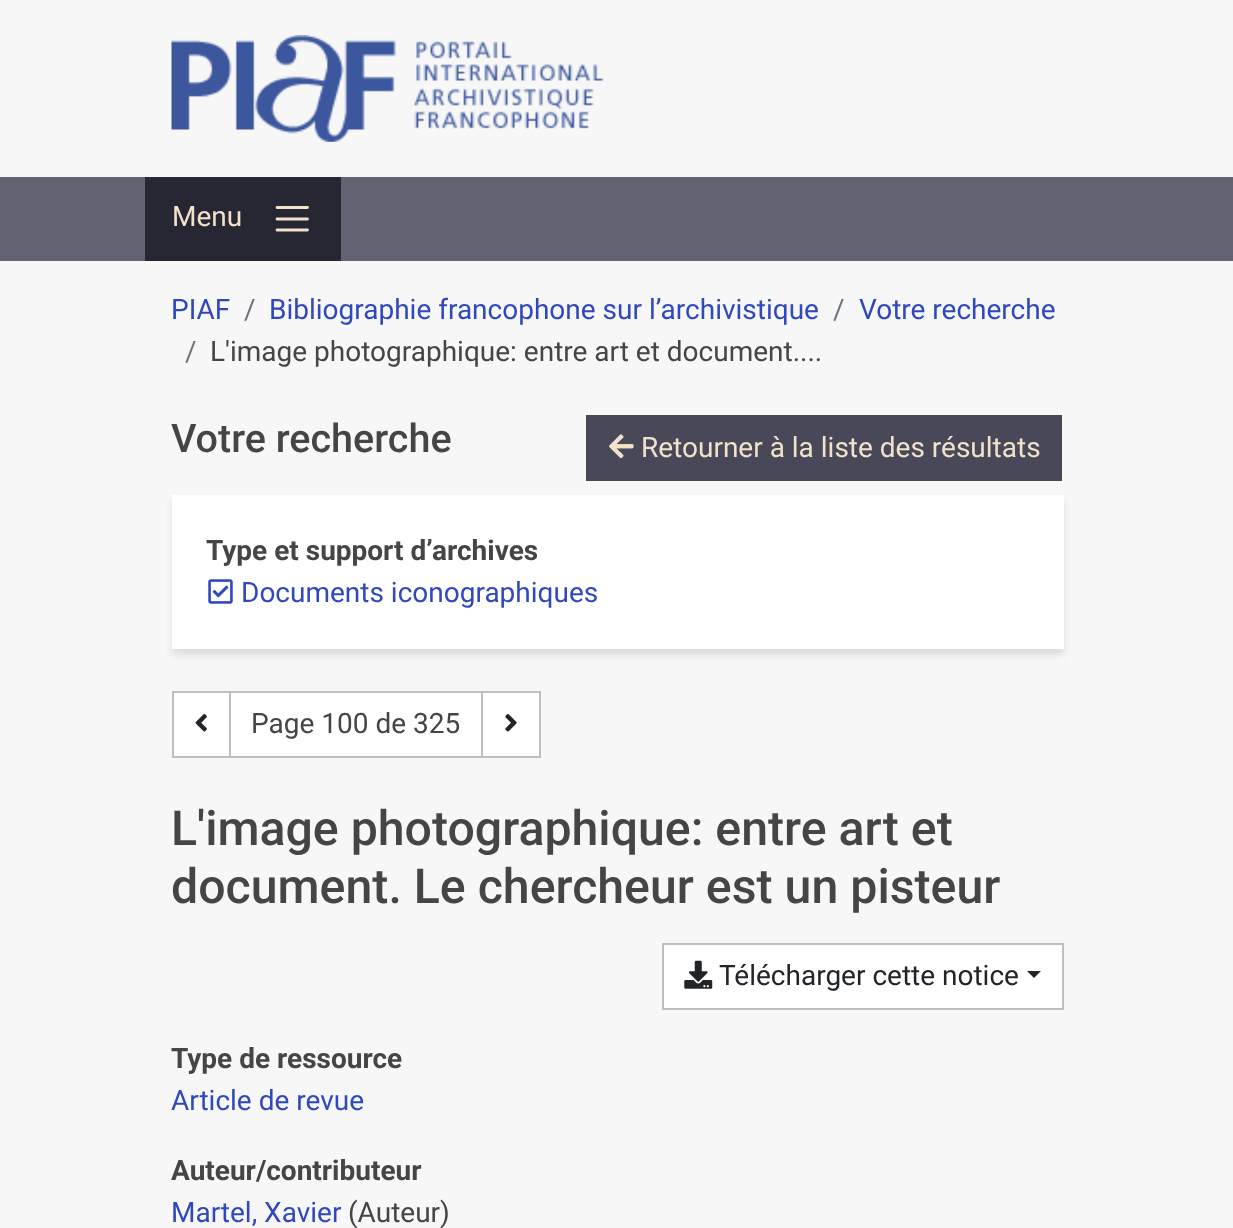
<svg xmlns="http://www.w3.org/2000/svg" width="1233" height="1228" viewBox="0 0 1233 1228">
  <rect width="100%" height="100%" fill="#f7f7f7"/>
  <image x="171" y="35" width="433" height="107" href="img/1.png"/>
  <path d="M0 177h1233v84H0z" fill="#626272"/>
  <path d="M145 177h196v84H145z" fill="#272733"/>
  <path d="M277 207.5H307.5M277 219H307.5M277 230H307.5" fill="none" stroke="#f2e1cb" stroke-width="2.8" stroke-linecap="round"/>
  <path d="M586 415h476v66H586z" fill="#484858"/>
  <image x="609" y="434" width="25" height="25" href="img/2.png"/>
  <path d="M172 501h892v154H172z" fill="#0000001a" filter="blur(3.5px)"/>
  <path d="M172 495h892v154H172z" fill="#fff"/>
  <image x="208" y="579" width="25" height="25" href="img/3.png"/>
  <path d="M173 692h57v65H173z" fill="#fff" stroke="#bfbfbf" stroke-width="2"/>
  <image x="195" y="714" width="12" height="18" href="img/4.png"/>
  <path d="M230 692h252v65H230z" fill="#fff" stroke="#bfbfbf" stroke-width="2"/>
  <path d="M482 692h58v65H482z" fill="#fff" stroke="#bfbfbf" stroke-width="2"/>
  <image x="505" y="714" width="12" height="18" href="img/5.png"/>
  <path d="M663 944h400v65H663z" fill="#fff" stroke="#bfbfbf" stroke-width="2"/>
  <image x="684" y="960" width="29" height="29" href="img/6.png"/>
  <path d="M1027 971H1041L1034 978Z" fill="#212529"/>
  <text x="172" y="226" font-family="Roboto" font-size="28" fill="#f2e1cb">Menu</text>
  <text x="171" y="319" font-family="Roboto" font-size="28" fill="#3048bf">PIAF</text>
  <text x="244" y="319" font-family="Roboto" font-size="28" fill="#6c757d">/</text>
  <text x="269" y="319" font-family="Roboto" font-size="28" fill="#3048bf">Bibliographie francophone sur l’archivistique</text>
  <text x="833" y="319" font-family="Roboto" font-size="28" fill="#6c757d">/</text>
  <text x="859" y="319" font-family="Roboto" font-size="28" fill="#3048bf">Votre recherche</text>
  <text x="185" y="361" font-family="Roboto" font-size="28" fill="#6c757d">/</text>
  <text x="210" y="361" font-family="Roboto" font-size="28" fill="#454545">L'image photographique: entre art et document....</text>
  <text x="171" y="452" font-family="Roboto" font-size="39.5" font-weight="500" fill="#454545">Votre recherche</text>
  <text x="641" y="457" font-family="Roboto" font-size="28" fill="#f2e1cb">Retourner à la liste des résultats</text>
  <text x="206" y="560" font-family="Roboto" font-size="28" font-weight="bold" fill="#454545">Type et support d’archives</text>
  <text x="241" y="602" font-family="Roboto" font-size="28" fill="#3048bf">Documents iconographiques</text>
  <text x="251" y="733" font-family="Roboto" font-size="28" fill="#454545">Page 100 de 325</text>
  <g font-family="Roboto" font-size="48.25" font-weight="500" fill="#454545">
    <text x="171" y="845">L'image photographique: entre art et</text>
    <text x="171" y="903">document. Le chercheur est un pisteur</text>
  </g>
  <text x="719" y="985" font-family="Roboto" font-size="28" fill="#212529">Télécharger cette notice</text>
  <text x="171" y="1068" font-family="Roboto" font-size="28" font-weight="bold" fill="#454545">Type de ressource</text>
  <text x="171" y="1110" font-family="Roboto" font-size="28" fill="#3048bf">Article de revue</text>
  <text x="171" y="1180" font-family="Roboto" font-size="28" font-weight="bold" fill="#454545">Auteur/contributeur</text>
  <text x="171" y="1222" font-family="Roboto" font-size="28" fill="#3048bf">Martel, Xavier</text>
  <text x="348" y="1222" font-family="Roboto" font-size="28" fill="#454545">(Auteur)</text>
</svg>
